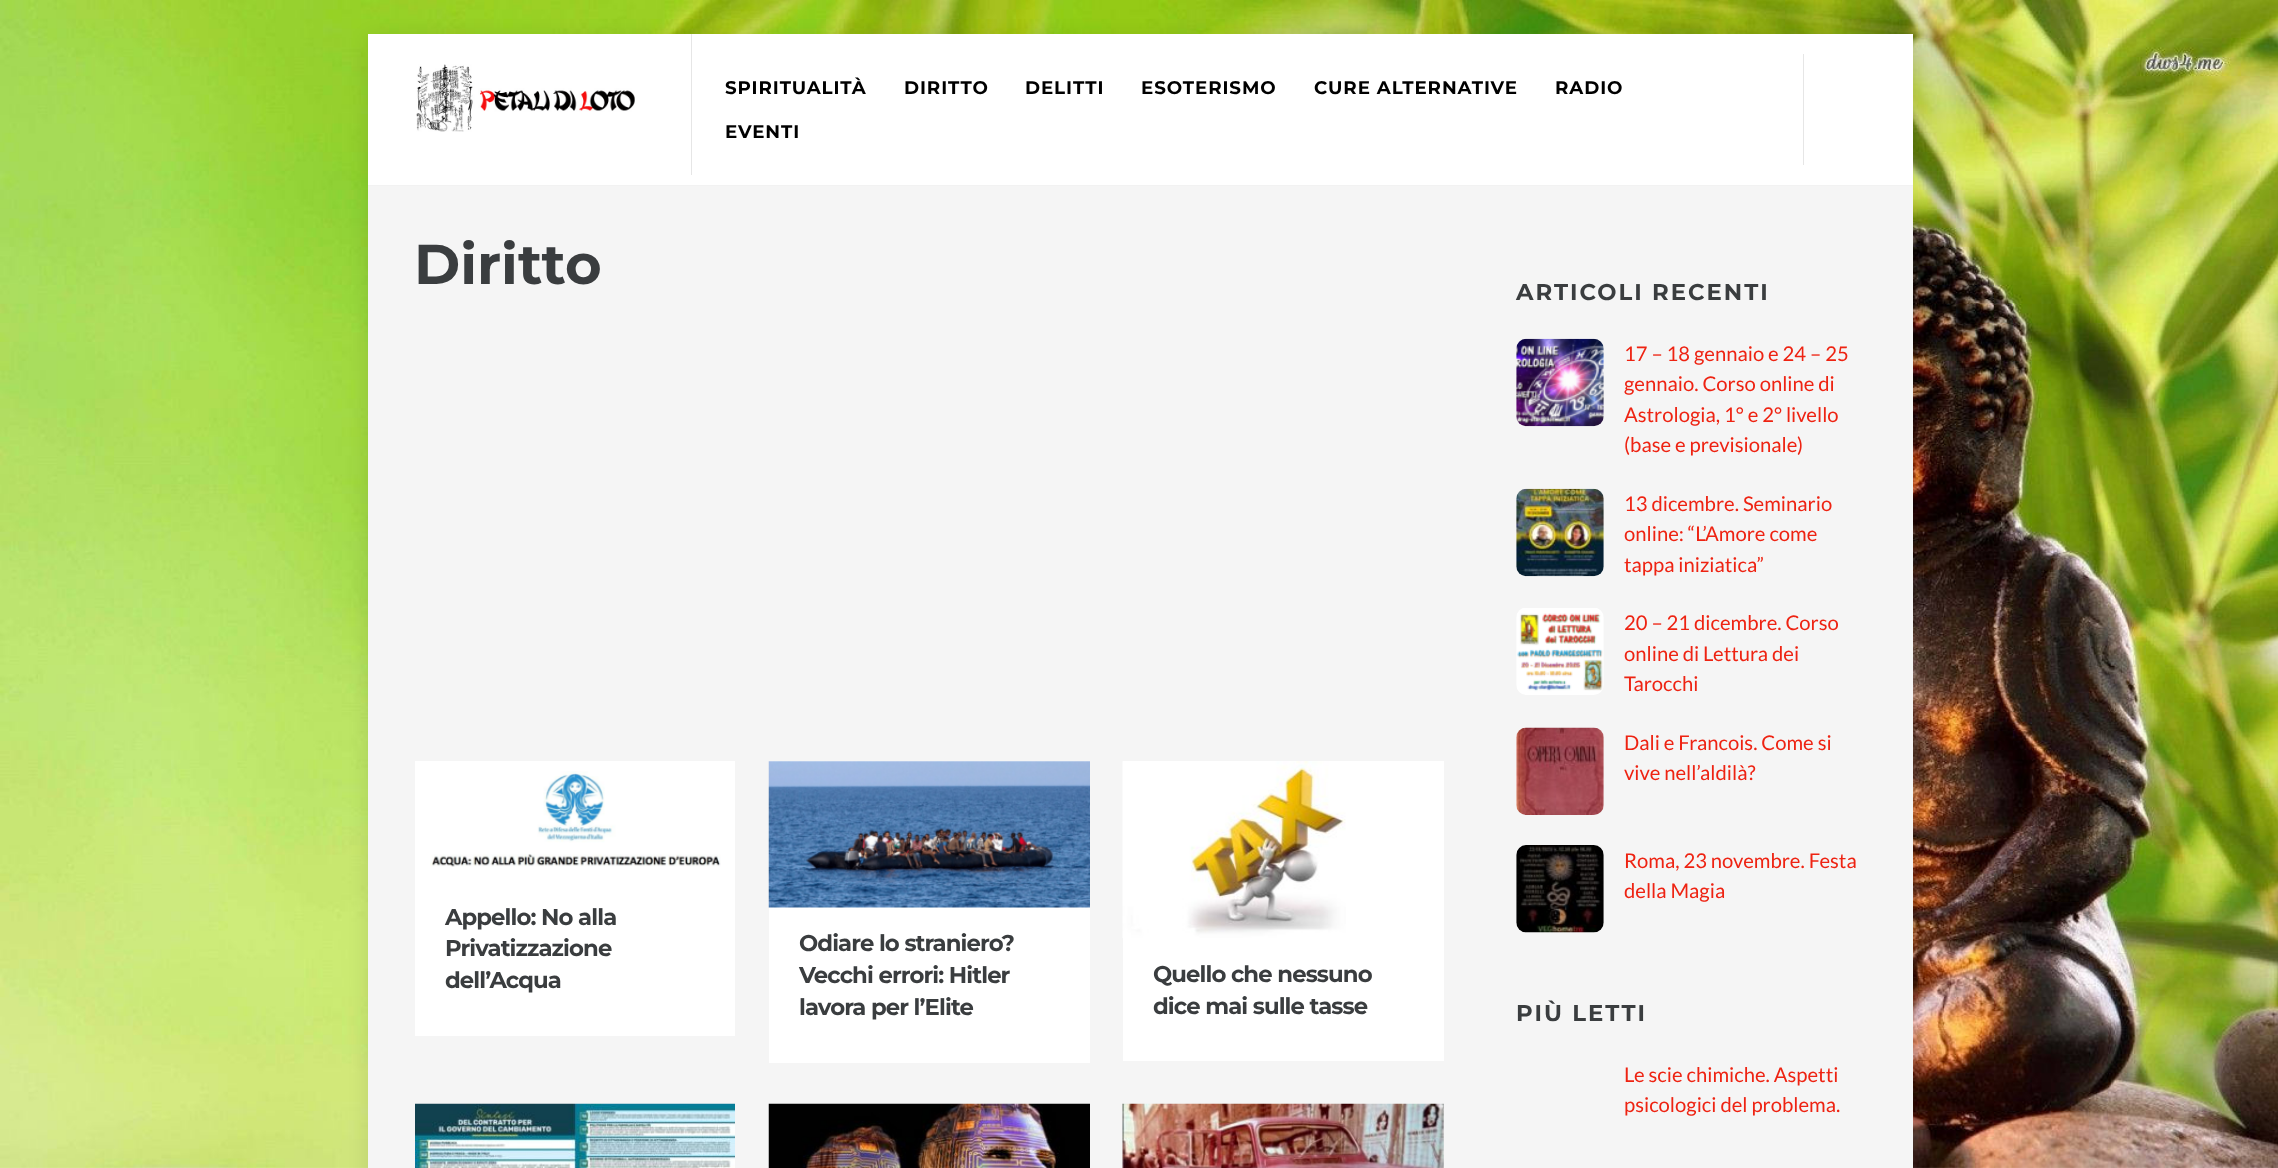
<svg xmlns="http://www.w3.org/2000/svg" width="2278" height="1168" viewBox="0 0 2278 1168">
  <rect width="100%" height="100%" fill="#fff"/>
  <image x="0" y="0" width="2278" height="1168" href="img/1.png"/>
  <path d="M368 38h1545v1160H368z" fill="#0000001a" filter="blur(10px)"/>
  <path d="M368 34h1545v151H368z" fill="#fff"/>
  <path d="M368 185h1545v1H368z" fill="#f2f2f2"/>
  <path d="M691 34h1v141H691z" fill="#e6e6e6"/>
  <image x="416" y="64" width="219" height="68" href="img/2.png"/>
  <path d="M1803 54h1v111H1803z" fill="#e6e6e6"/>
  <path d="M368 186h1545v982H368z" fill="#f5f5f5"/>
  <path d="M415 761h320v275H415z" fill="#fff"/>
  <image x="430" y="771" width="291" height="96" href="img/3.png"/>
  <path d="M769 761h321v302H769z" fill="#fff"/>
  <image x="768" y="761" width="322" height="147" href="img/4.png"/>
  <path d="M1123 761h321v300H1123z" fill="#fff"/>
  <image x="1122" y="761" width="224" height="177" href="img/5.png"/>
  <image x="415" y="1103" width="320" height="65" href="img/6.png"/>
  <image x="768" y="1103" width="322" height="65" href="img/7.png"/>
  <image x="1122" y="1103" width="322" height="65" href="img/8.png"/>
  <image x="1516" y="338" width="88" height="89" href="img/9.png"/>
  <image x="1516" y="488" width="88" height="89" href="img/10.png"/>
  <image x="1516" y="608" width="88" height="87" href="img/11.png"/>
  <image x="1516" y="727" width="88" height="88" href="img/12.png"/>
  <image x="1516" y="845" width="88" height="88" href="img/13.png"/>
  <g font-family="Montserrat" font-size="18.25" font-weight="bold" letter-spacing="0.9" fill="#000">
    <text x="725" y="94">SPIRITUALITÀ</text>
    <text x="904" y="94">DIRITTO</text>
    <text x="1025" y="94">DELITTI</text>
    <text x="1141" y="94">ESOTERISMO</text>
    <text x="1314" y="94">CURE ALTERNATIVE</text>
    <text x="1555" y="94">RADIO</text>
    <text x="725" y="138">EVENTI</text>
  </g>
  <text x="414" y="284" font-family="Montserrat" font-size="56" font-weight="bold" fill="#3a3d3f">Diritto</text>
  <g font-family="Montserrat" font-size="22.75" font-weight="bold" letter-spacing="-0.9" fill="#3a3d3f">
    <text x="445" y="925">Appello: No alla</text>
    <text x="445" y="956">Privatizzazione</text>
    <text x="445" y="988">dell’Acqua</text>
    <text x="799" y="951">Odiare lo straniero?</text>
    <text x="799" y="983">Vecchi errori: Hitler</text>
    <text x="799" y="1015">lavora per l’Elite</text>
    <text x="1153" y="982">Quello che nessuno</text>
    <text x="1153" y="1014">dice mai sulle tasse</text>
  </g>
  <text x="1516" y="300" font-family="Montserrat" font-size="22.75" font-weight="bold" letter-spacing="2" fill="#3a3d3f">ARTICOLI RECENTI</text>
  <g font-family="Lato" font-size="20.25" fill="#ee2312">
    <text x="1624" y="361">17 – 18 gennaio e 24 – 25</text>
    <text x="1624" y="391">gennaio. Corso online di</text>
    <text x="1624" y="422">Astrologia, 1° e 2° livello</text>
    <text x="1624" y="452">(base e previsionale)</text>
    <text x="1624" y="511">13 dicembre. Seminario</text>
    <text x="1624" y="541">online: “L’Amore come</text>
    <text x="1624" y="572">tappa iniziatica”</text>
    <text x="1624" y="630">20 – 21 dicembre. Corso</text>
    <text x="1624" y="661">online di Lettura dei</text>
    <text x="1624" y="691">Tarocchi</text>
    <text x="1624" y="750">Dali e Francois. Come si</text>
    <text x="1624" y="780">vive nell’aldilà?</text>
    <text x="1624" y="868">Roma, 23 novembre. Festa</text>
    <text x="1624" y="898">della Magia</text>
  </g>
  <text x="1516" y="1021" font-family="Montserrat" font-size="22.75" font-weight="bold" letter-spacing="2" fill="#3a3d3f">PIÙ LETTI</text>
  <g font-family="Lato" font-size="20.25" fill="#ee2312">
    <text x="1624" y="1082">Le scie chimiche. Aspetti</text>
    <text x="1624" y="1112">psicologici del problema.</text>
  </g>
</svg>
